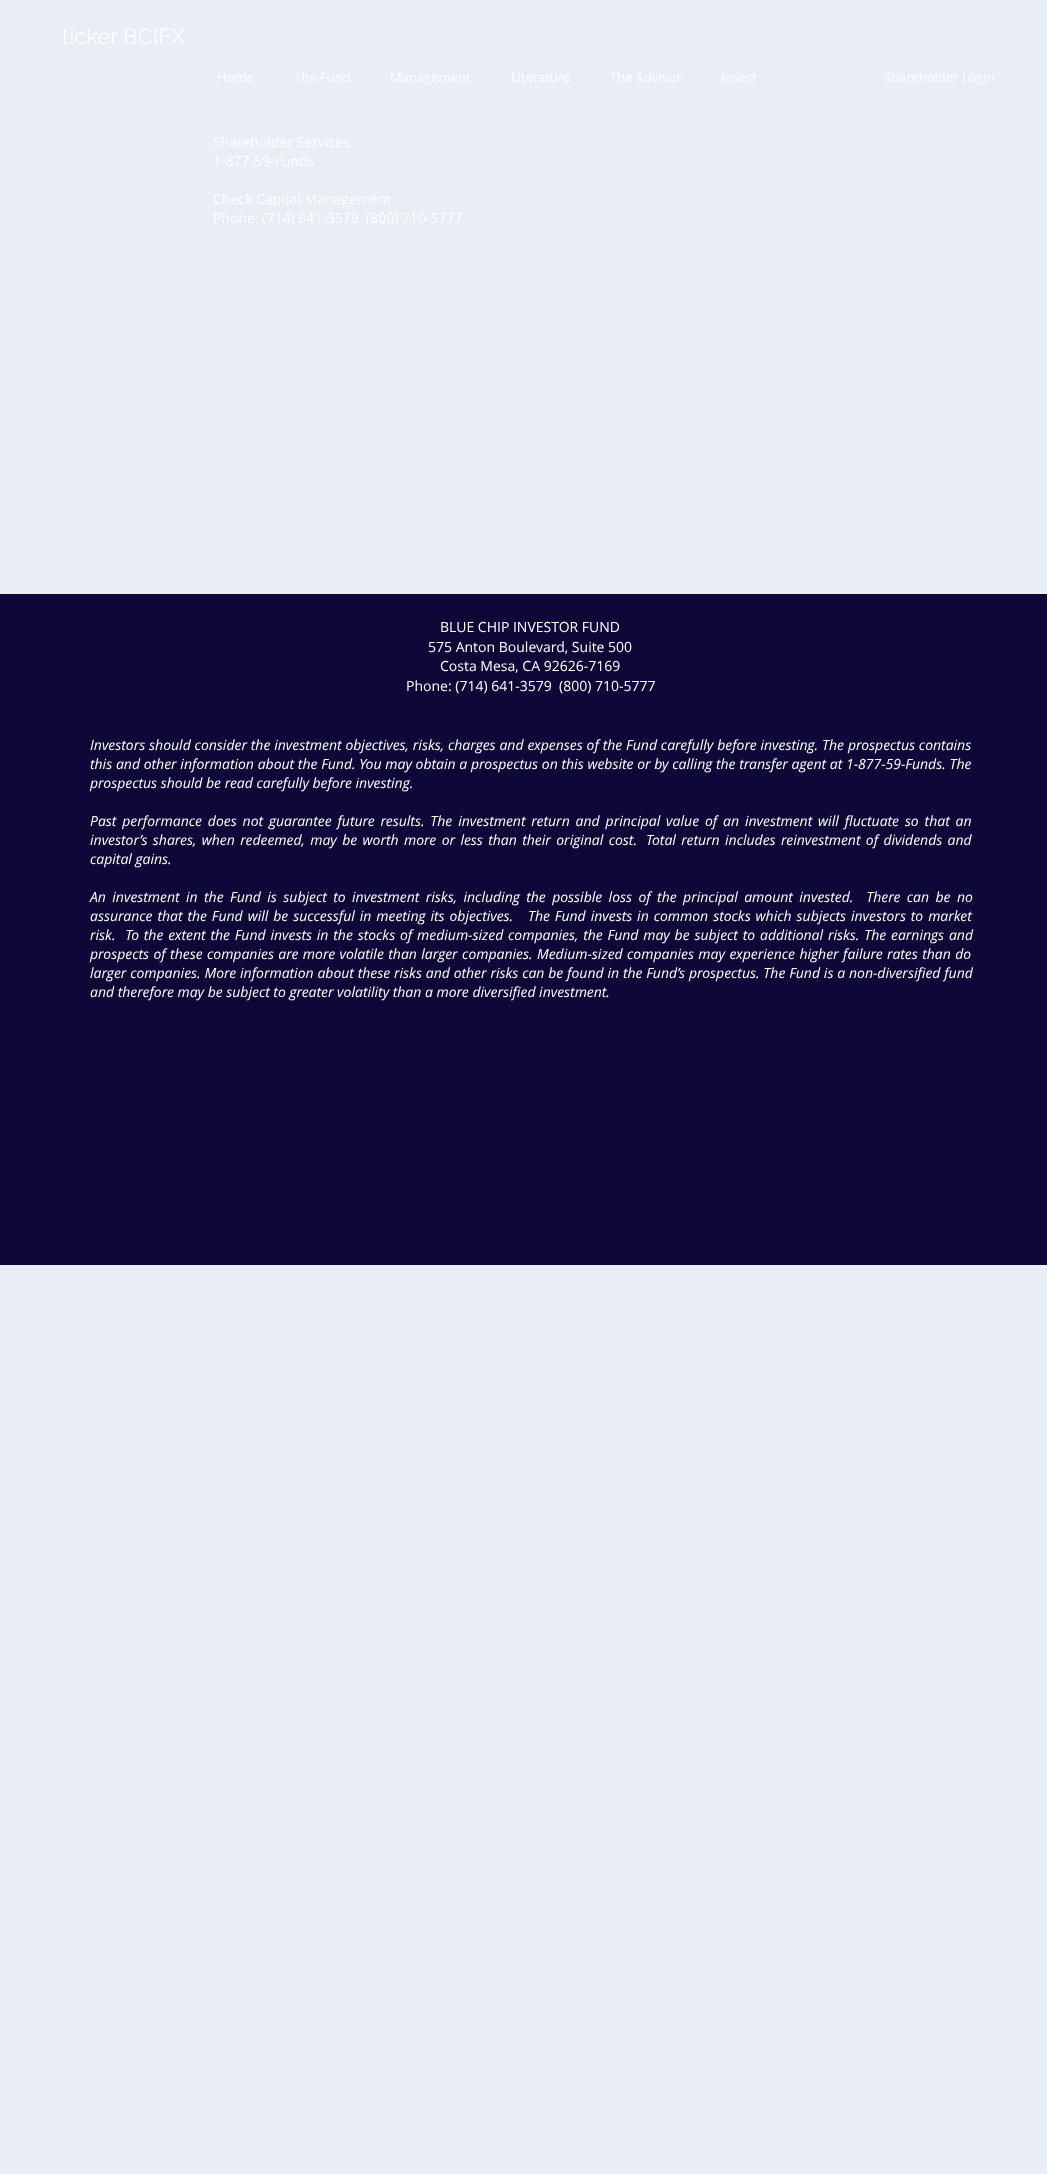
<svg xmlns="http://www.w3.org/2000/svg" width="1047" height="2174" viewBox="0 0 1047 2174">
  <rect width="100%" height="100%" fill="#e9edf5"/>
  <path d="M0 594h1047v671H0z" fill="#0d0838"/>
  <text x="62" y="44" font-family="Raleway" font-size="22" fill="#fff">ticker BCIFX</text>
  <g font-family="Open Sans" font-size="13" fill="#fff">
    <text x="217" y="82">Home</text>
    <text x="294" y="82">The Fund</text>
    <text x="390" y="82">Management</text>
    <text x="511" y="82">Literature</text>
    <text x="610" y="82">The Advisor</text>
    <text x="721" y="82">Invest</text>
    <text x="884" y="82">Shareholder Login</text>
  </g>
  <g font-family="Open Sans" font-size="14" fill="#fff">
    <text x="213" y="147">Shareholder Services</text>
    <text x="213" y="166">1-877-59-Funds</text>
    <text x="213" y="204">Check Capital Management</text>
    <text x="213" y="223" xml:space="preserve">Phone: (714) 641-3579  (800) 710-5777</text>
    <text x="440" y="632">BLUE CHIP INVESTOR FUND</text>
    <text x="428" y="652">575 Anton Boulevard, Suite 500</text>
    <text x="440" y="671">Costa Mesa, CA 92626-7169</text>
    <text x="406" y="691" xml:space="preserve">Phone: (714) 641-3579  (800) 710-5777</text>
  </g>
  <g font-family="Open Sans" font-size="14" font-style="italic" fill="#fff">
    <text x="90" y="750" word-spacing="0.25">Investors should consider the investment objectives, risks, charges and expenses of the Fund carefully before investing. The prospectus contains</text>
    <text x="90" y="769" word-spacing="0.1">this and other information about the Fund. You may obtain a prospectus on this website or by calling the transfer agent at 1-877-59-Funds. The</text>
    <text x="90" y="788">prospectus should be read carefully before investing.</text>
    <text x="90" y="826" word-spacing="2.25">Past performance does not guarantee future results. The investment return and principal value of an investment will fluctuate so that an</text>
    <text x="90" y="845" word-spacing="1.75">investor’s shares, when redeemed, may be worth more or less than their original cost.</text>
    <text x="646" y="845" word-spacing="1.75">Total return includes reinvestment of dividends and</text>
    <text x="90" y="864">capital gains.</text>
    <text x="90" y="902" word-spacing="2.8" xml:space="preserve">An investment in the Fund is subject to investment risks, including the possible loss of the principal amount invested.  There can be no</text>
    <text x="90" y="921" word-spacing="1.3" xml:space="preserve">assurance that the Fund will be successful in meeting its objectives.   The Fund invests in common stocks which subjects investors to market</text>
    <text x="90" y="940" word-spacing="1.2" xml:space="preserve">risk.  To the extent the Fund invests in the stocks of medium-sized companies, the Fund may be subject to additional risks. The earnings and</text>
    <text x="90" y="959" word-spacing="0.8">prospects of these companies are more volatile than larger companies. Medium-sized companies may experience higher failure rates than do</text>
    <text x="90" y="978" word-spacing="0.2">larger companies. More information about these risks and other risks can be found in the Fund’s prospectus. The Fund is a non-diversified fund</text>
    <text x="90" y="997">and therefore may be subject to greater volatility than a more diversified investment.</text>
  </g>
</svg>
